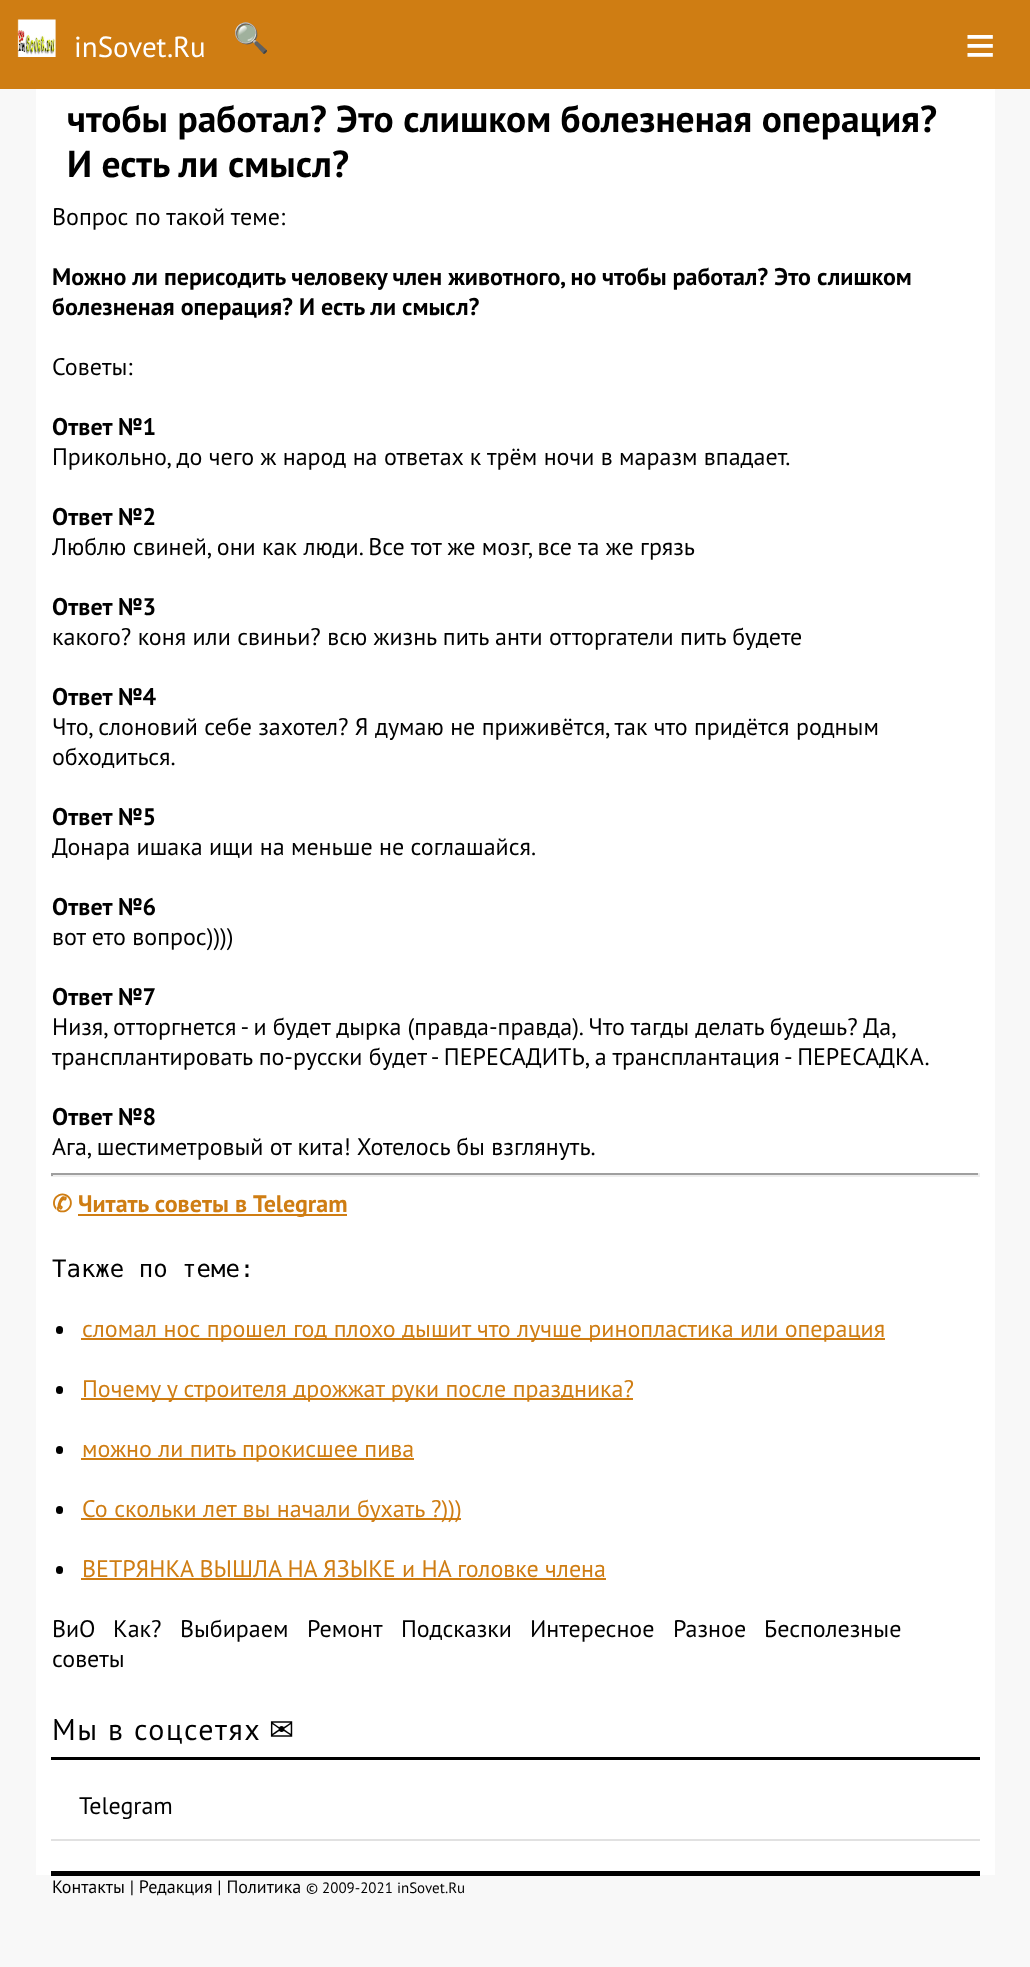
<svg xmlns="http://www.w3.org/2000/svg" width="1030" height="1967" viewBox="0 0 1030 1967">
  <rect width="100%" height="100%" fill="#f8f8f8"/>
  <path d="M0 0h1030v89H0z" fill="#cf7d13"/>
  <image x="17" y="19" width="39" height="38" href="img/1.png"/>
  <path d="M36 89h959v1786H36z" fill="#fff"/>
  <path d="M51 1173h929v2H51z" fill="#9f9f9f"/>
  <path d="M978 1173h2v3H978z" fill="#eee"/>
  <path d="M51 1175h929v2H51z" fill="#eee"/>
  <path d="M51 1173h2v3H51z" fill="#9f9f9f"/>
  <path d="M78 1214h269v2H78z" fill="#cf7d13"/>
  <rect x="56" y="1326" width="7" height="8" rx="3.5" fill="#000"/>
  <path d="M81 1338h804v2H81z" fill="#cf7d13"/>
  <rect x="56" y="1386" width="7" height="8" rx="3.5" fill="#000"/>
  <path d="M81 1398h552v2H81z" fill="#cf7d13"/>
  <rect x="56" y="1446" width="7" height="8" rx="3.5" fill="#000"/>
  <path d="M81 1458h333v2H81z" fill="#cf7d13"/>
  <rect x="56" y="1506" width="7" height="8" rx="3.5" fill="#000"/>
  <path d="M81 1518h380v2H81z" fill="#cf7d13"/>
  <rect x="56" y="1566" width="7" height="8" rx="3.5" fill="#000"/>
  <path d="M81 1578h525v2H81z" fill="#cf7d13"/>
  <path d="M51 1757h929v3H51z" fill="#000"/>
  <path d="M51 1839h929v2H51z" fill="#e1e1e1"/>
  <path d="M51 1871h929v5H51z" fill="#000"/>
  <text x="74" y="57" font-family="PT Sans" font-size="29" fill="#fff">inSovet.Ru</text>
  <text x="233" y="48" font-family="Noto Color Emoji" font-size="29" fill="#fff">🔍</text>
  <text x="965" y="63" font-family="Liberation Sans" font-size="52" fill="#fff">≡</text>
  <g font-family="PT Sans" font-size="37.5" font-weight="bold" fill="#000">
    <text x="67" y="132">чтобы работал? Это слишком болезненая операция?</text>
    <text x="67" y="177">И есть ли смысл?</text>
  </g>
  <text x="52" y="225" font-family="PT Sans" font-size="24" fill="#000">Вопрос по такой теме:</text>
  <g font-family="PT Sans" font-size="24" font-weight="bold" fill="#000">
    <text x="52" y="285">Можно ли перисодить человеку член животного, но чтобы работал? Это слишком</text>
    <text x="52" y="315">болезненая операция? И есть ли смысл?</text>
  </g>
  <text x="52" y="375" font-family="PT Sans" font-size="24" fill="#000">Советы:</text>
  <text x="52" y="435" font-family="PT Sans" font-size="24" font-weight="bold" fill="#000">Ответ №1</text>
  <text x="52" y="465" font-family="PT Sans" font-size="24" fill="#000">Прикольно, до чего ж народ на ответах к трём ночи в маразм впадает.</text>
  <text x="52" y="525" font-family="PT Sans" font-size="24" font-weight="bold" fill="#000">Ответ №2</text>
  <text x="52" y="555" font-family="PT Sans" font-size="24" fill="#000">Люблю свиней, они как люди. Все тот же мозг, все та же грязь</text>
  <text x="52" y="615" font-family="PT Sans" font-size="24" font-weight="bold" fill="#000">Ответ №3</text>
  <text x="52" y="645" font-family="PT Sans" font-size="24" fill="#000">какого? коня или свиньи? всю жизнь пить анти отторгатели пить будете</text>
  <text x="52" y="705" font-family="PT Sans" font-size="24" font-weight="bold" fill="#000">Ответ №4</text>
  <g font-family="PT Sans" font-size="24" fill="#000">
    <text x="52" y="735">Что, слоновий себе захотел? Я думаю не приживётся, так что придётся родным</text>
    <text x="52" y="765">обходиться.</text>
  </g>
  <text x="52" y="825" font-family="PT Sans" font-size="24" font-weight="bold" fill="#000">Ответ №5</text>
  <text x="52" y="855" font-family="PT Sans" font-size="24" fill="#000">Донара ишака ищи на меньше не соглашайся.</text>
  <text x="52" y="915" font-family="PT Sans" font-size="24" font-weight="bold" fill="#000">Ответ №6</text>
  <text x="52" y="945" font-family="PT Sans" font-size="24" fill="#000">вот ето вопрос))))</text>
  <text x="52" y="1005" font-family="PT Sans" font-size="24" font-weight="bold" fill="#000">Ответ №7</text>
  <g font-family="PT Sans" font-size="24" fill="#000">
    <text x="52" y="1035" word-spacing="-0.25">Низя, отторгнется - и будет дырка (правда-правда). Что тагды делать будешь? Да,</text>
    <text x="52" y="1065">трансплантировать по-русски будет - ПЕРЕСАДИТЬ, а трансплантация - ПЕРЕСАДКА.</text>
  </g>
  <text x="52" y="1125" font-family="PT Sans" font-size="24" font-weight="bold" fill="#000">Ответ №8</text>
  <text x="52" y="1155" font-family="PT Sans" font-size="24" fill="#000">Ага, шестиметровый от кита! Хотелось бы взглянуть.</text>
  <text x="52" y="1212" font-family="DejaVu Sans" font-size="24" font-weight="bold" fill="#cf7d13">✆</text>
  <text x="78" y="1212" font-family="PT Sans" font-size="24" font-weight="bold" fill="#cf7d13">Читать советы в Telegram</text>
  <text x="52" y="1277" font-family="DejaVu Sans Mono" font-size="24" fill="#000">Также по теме:</text>
  <g font-family="PT Sans" font-size="24" fill="#cf7d13">
    <text x="82" y="1337">сломал нос прошел год плохо дышит что лучше ринопластика или операция</text>
    <text x="82" y="1397">Почему у строителя дрожжат руки после праздника?</text>
    <text x="82" y="1457">можно ли пить прокисшее пива</text>
    <text x="82" y="1517">Со скольки лет вы начали бухать ?)))</text>
    <text x="82" y="1577">ВЕТРЯНКА ВЫШЛА НА ЯЗЫКЕ и НА головке члена</text>
  </g>
  <g font-family="PT Sans" font-size="24" fill="#000">
    <text x="52" y="1637">ВиО</text>
    <text x="113" y="1637">Как?</text>
    <text x="180" y="1637">Выбираем</text>
    <text x="307" y="1637">Ремонт</text>
    <text x="401" y="1637">Подсказки</text>
    <text x="530" y="1637">Интересное</text>
    <text x="673" y="1637">Разное</text>
    <text x="764" y="1637">Бесполезные</text>
    <text x="52" y="1667">советы</text>
  </g>
  <text x="52" y="1740" font-family="PT Sans" font-size="30" letter-spacing="1.5" fill="#000">Мы в соцсетях</text>
  <text x="269" y="1740" font-family="DejaVu Sans" font-size="30" letter-spacing="1.5" fill="#000">✉</text>
  <text x="79" y="1814" font-family="PT Sans" font-size="24" fill="#000">Telegram</text>
  <text x="52" y="1893" font-family="PT Sans" font-size="18" fill="#000">Контакты | Редакция | Политика</text>
  <text x="306" y="1893" font-family="PT Sans" font-size="15" fill="#000">© 2009-2021 inSovet.Ru</text>
</svg>
